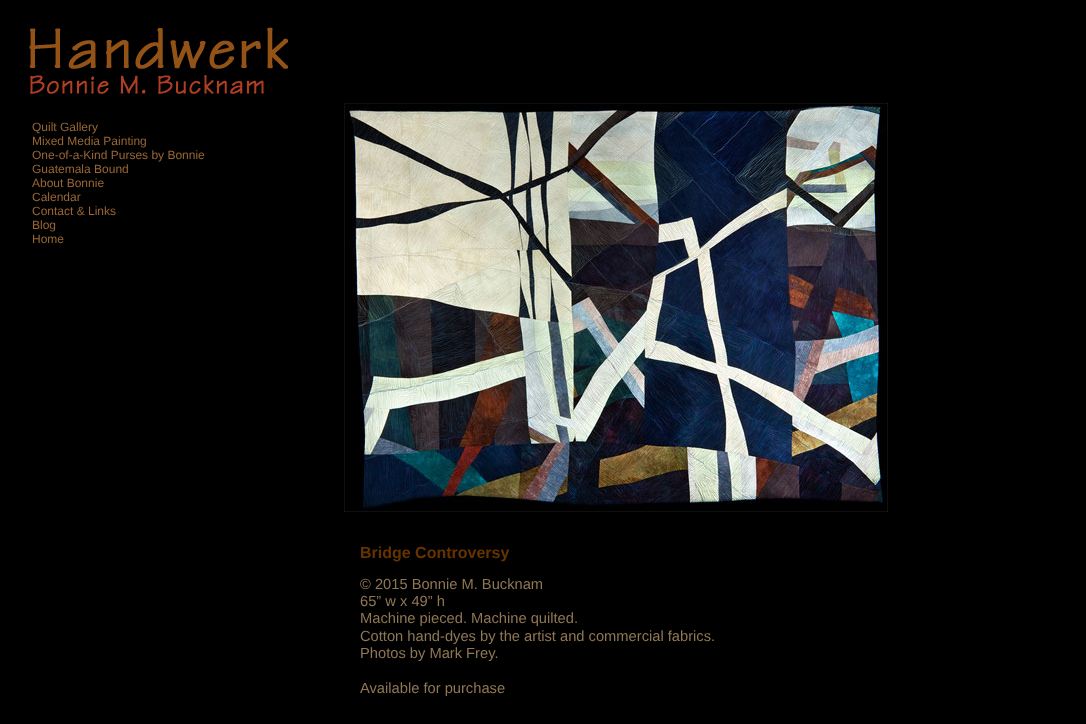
<svg xmlns="http://www.w3.org/2000/svg" width="1086" height="724" viewBox="0 0 1086 724">
  <rect width="100%" height="100%" fill="#000"/>
  <image x="29" y="27" width="259" height="67" href="img/1.png"/>
  <image x="344" y="103" width="544" height="409" href="img/2.png"/>
  <g font-family="Liberation Sans" font-size="12" fill="#963">
    <text x="32" y="131">Quilt Gallery</text>
    <text x="32" y="145">Mixed Media Painting</text>
    <text x="32" y="159">One-of-a-Kind Purses by Bonnie</text>
    <text x="32" y="173">Guatemala Bound</text>
    <text x="32" y="187">About Bonnie</text>
    <text x="32" y="201">Calendar</text>
    <text x="32" y="215">Contact &amp; Links</text>
    <text x="32" y="229">Blog</text>
    <text x="32" y="243">Home</text>
  </g>
  <text x="360" y="558" font-family="Liberation Sans" font-size="16" font-weight="bold" fill="#630">Bridge Controversy</text>
  <g font-family="Liberation Sans" font-size="14.7" fill="#907754">
    <text x="360" y="589">© 2015 Bonnie M. Bucknam</text>
    <text x="360" y="606">65” w x 49” h</text>
    <text x="360" y="623">Machine pieced. Machine quilted.</text>
    <text x="360" y="641">Cotton hand-dyes by the artist and commercial fabrics.</text>
    <text x="360" y="658">Photos by Mark Frey.</text>
    <text x="360" y="693">Available for purchase</text>
  </g>
</svg>
